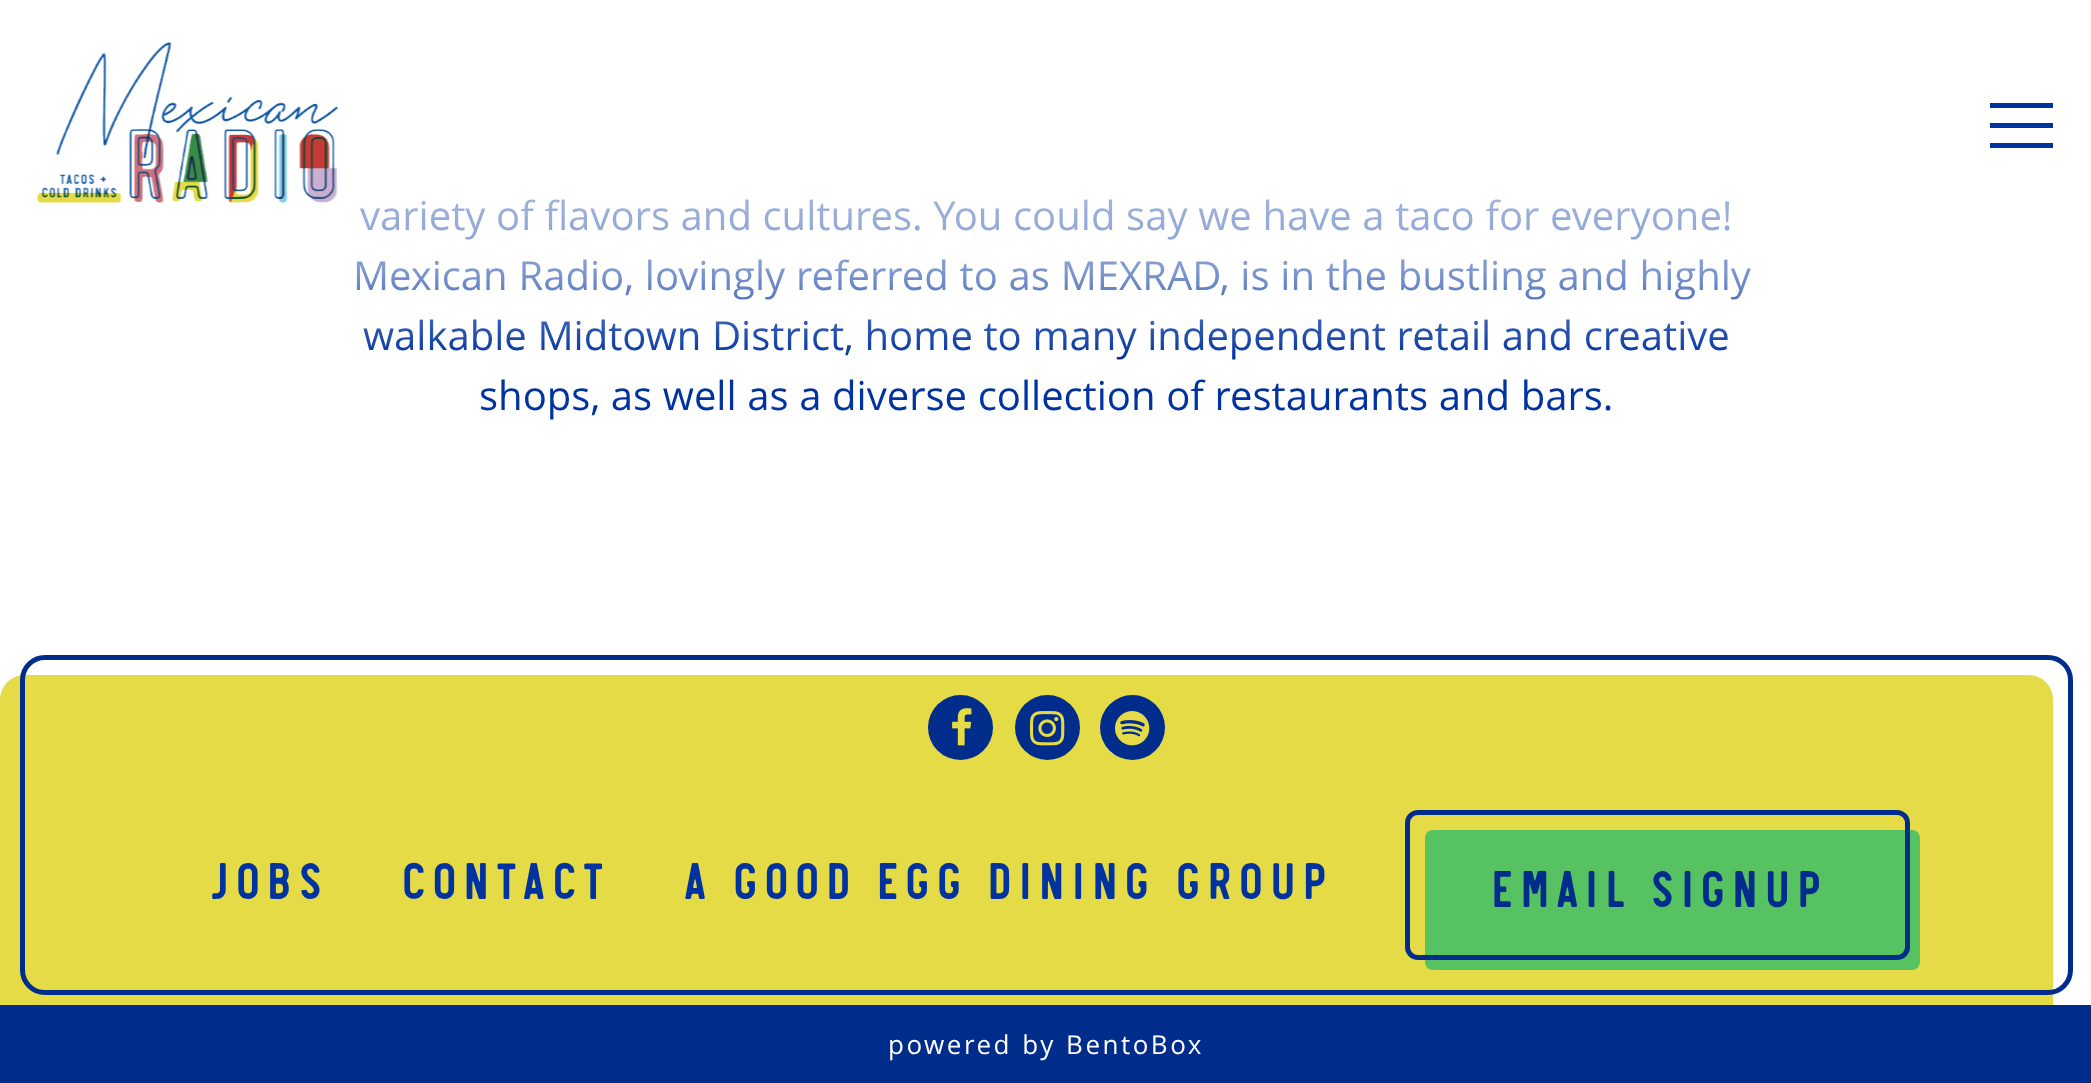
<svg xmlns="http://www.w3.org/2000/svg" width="2091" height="1083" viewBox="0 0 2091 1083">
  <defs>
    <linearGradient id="g1" gradientUnits="userSpaceOnUse" x1="1046" y1="0" x2="1046" y2="360"><stop offset="0" stop-color="#fff"/><stop offset="0.75" stop-color="#fff" stop-opacity="0.5"/><stop offset="1" stop-color="#fff" stop-opacity="0"/></linearGradient>
  </defs>
  <rect width="100%" height="100%" fill="#fff"/>
  <image x="37" y="42" width="301" height="161" href="img/1.png"/>
  <path d="M1990 103h63v5H1990z" fill="#0033a0"/>
  <path d="M1990 123h63v5H1990z" fill="#0033a0"/>
  <path d="M1990 143h63v5H1990z" fill="#0033a0"/>
  <path d="M25 675H2028C2042 675 2053 686 2053 700V1005H0V700C0 686 11 675 25 675Z" fill="#e4db46"/>
  <rect x="22.5" y="657.5" width="2048" height="335" rx="22.5" fill="none" stroke="#002d8c" stroke-width="5"/>
  <circle cx="960.5" cy="727.5" r="32.5" fill="#002d8c"/>
  <image x="952" y="708" width="20" height="38" href="img/2.png"/>
  <circle cx="1047.5" cy="727.5" r="32.5" fill="#002d8c"/>
  <image x="1030" y="711" width="35" height="35" href="img/3.png"/>
  <circle cx="1132.5" cy="727.5" r="32.5" fill="#002d8c"/>
  <image x="1115" y="711" width="35" height="35" href="img/4.png"/>
  <rect x="1425" y="830" width="495" height="140" rx="8" fill="#57c261"/>
  <rect x="1407.5" y="812.5" width="500" height="145" rx="10.5" fill="none" stroke="#002d8c" stroke-width="5"/>
  <path d="M0 1005h2091v78H0z" fill="#002d8c"/>
  <g font-family="Open Sans" font-size="40" fill="#0033a0">
    <text x="360" y="230" word-spacing="0.25">variety of flavors and cultures. You could say we have a taco for everyone!</text>
    <text x="353" y="290" word-spacing="0.4">Mexican Radio, lovingly referred to as MEXRAD, is in the bustling and highly</text>
    <text x="363" y="350" word-spacing="0.25">walkable Midtown District, home to many independent retail and creative</text>
  </g>
  <path d="M356 199h1395v157H356z" fill="url(#g1)"/>
  <text x="479" y="410" word-spacing="0.25" font-family="Open Sans" font-size="40" fill="#0033a0">shops, as well as a diverse collection of restaurants and bars.</text>
  <g font-family="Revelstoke" font-size="54" font-weight="bold" letter-spacing="2.5" fill="#0033a0">
    <text x="209" y="899">JOBS</text>
    <text x="399" y="899">CONTACT</text>
    <text x="681" y="899">A GOOD EGG DINING GROUP</text>
  </g>
  <text x="1489" y="907" font-family="Revelstoke" font-size="54" font-weight="bold" letter-spacing="2.5" fill="#002d8c">EMAIL SIGNUP</text>
  <text x="888" y="1054" word-spacing="1" font-family="Open Sans" font-size="26" letter-spacing="2.5" fill="#fff">powered by BentoBox</text>
</svg>
